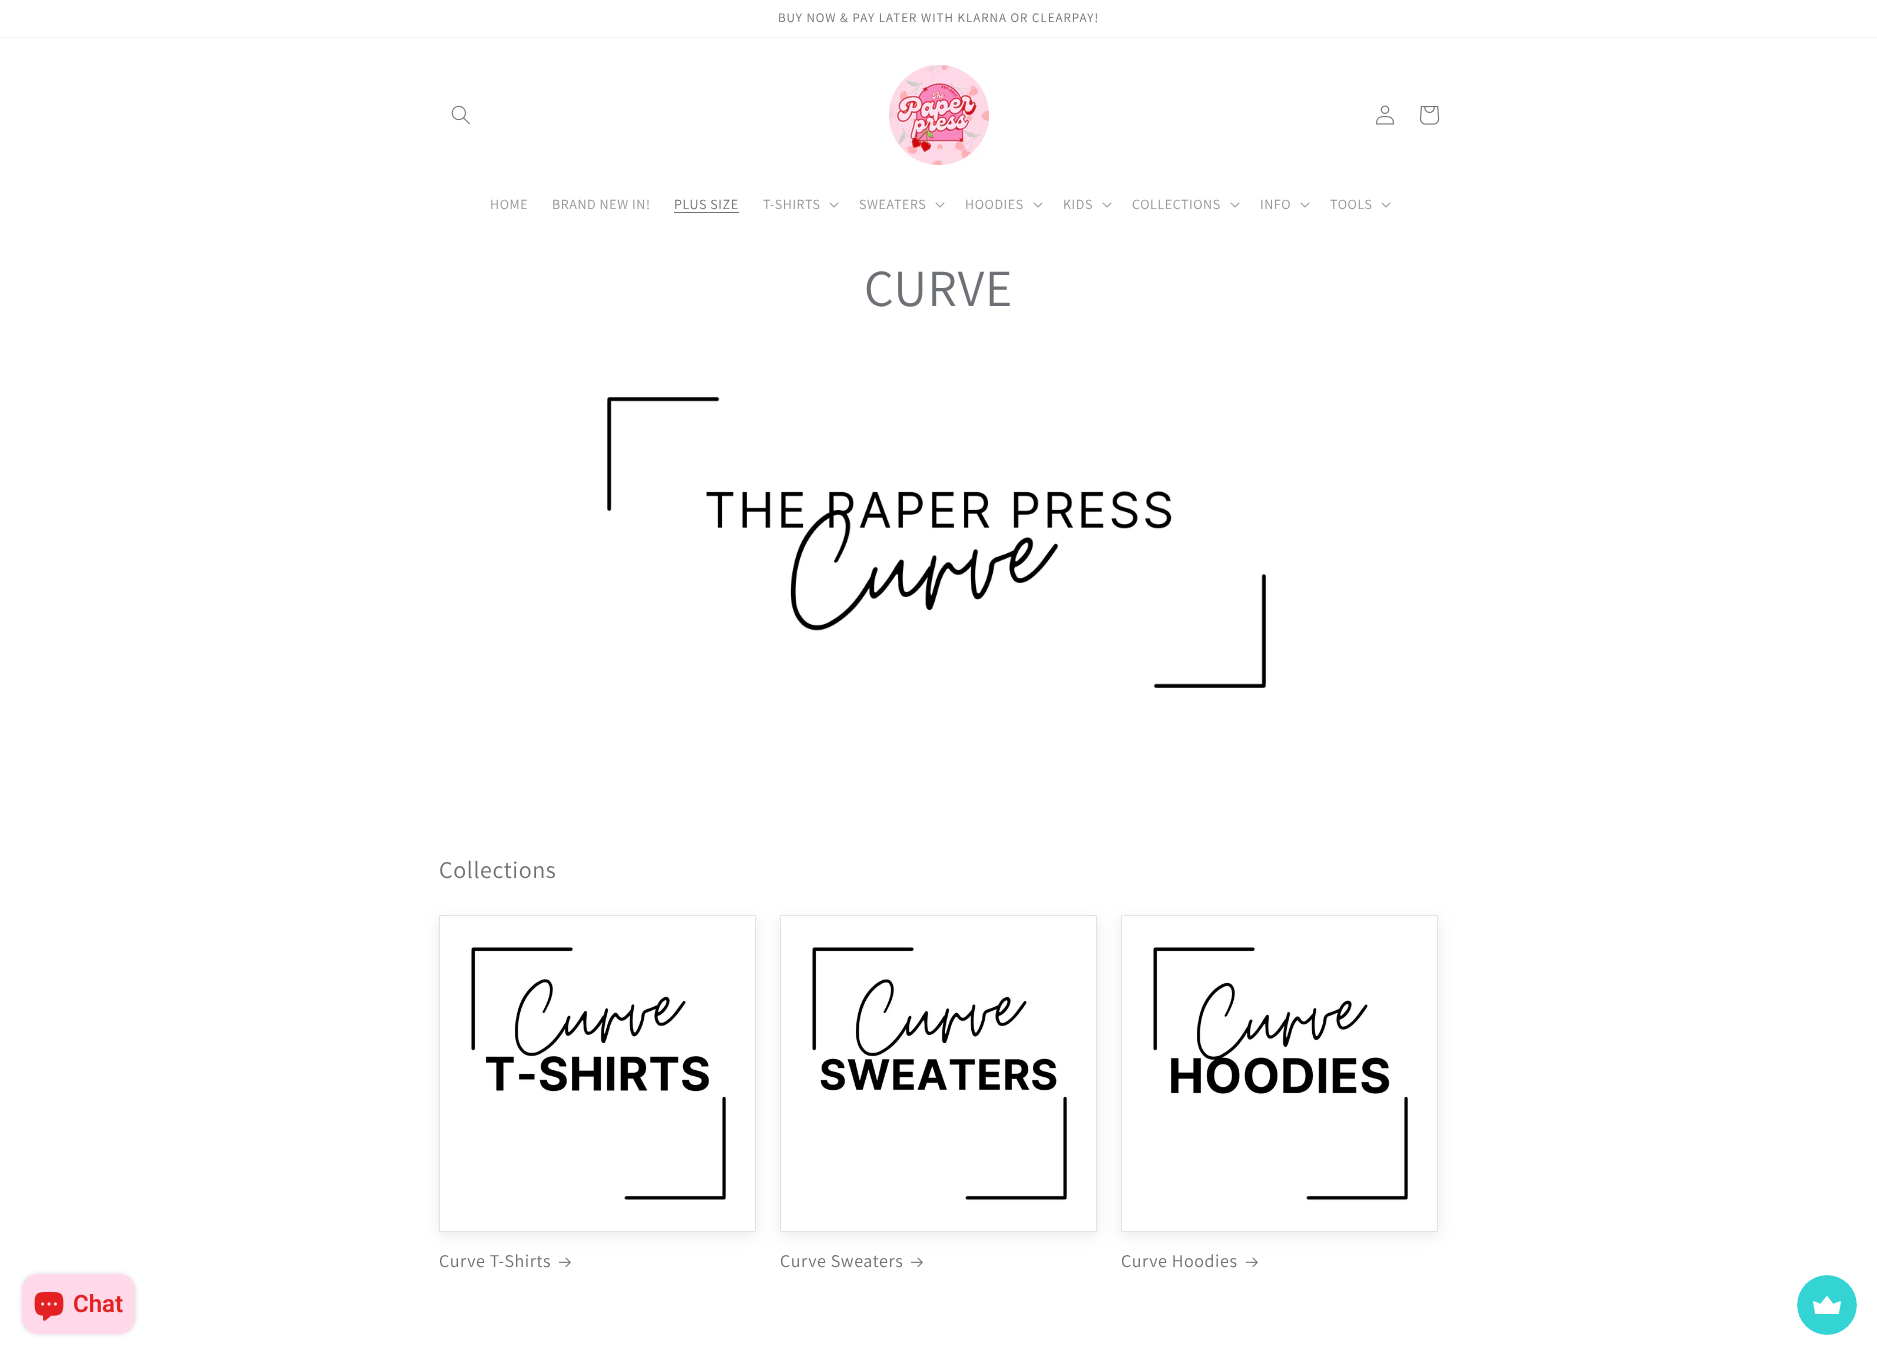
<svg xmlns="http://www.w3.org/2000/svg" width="1877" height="1355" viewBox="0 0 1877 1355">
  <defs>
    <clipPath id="clip1"><path d="M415 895H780V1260H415ZM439 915H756V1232H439Z" clip-rule="evenodd"/></clipPath>
    <clipPath id="clip2"><path d="M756 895H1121V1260H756ZM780 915H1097V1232H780Z" clip-rule="evenodd"/></clipPath>
    <clipPath id="clip3"><path d="M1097 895H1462V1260H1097ZM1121 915H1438V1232H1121Z" clip-rule="evenodd"/></clipPath>
  </defs>
  <rect width="100%" height="100%" fill="#fff"/>
  <path d="M0 37h1877v1H0z" fill="#f3f4f4"/>
  <image x="451" y="105" width="19" height="20" href="img/1.png"/>
  <image x="889" y="65" width="100" height="100" href="img/2.png"/>
  <image x="1376" y="105" width="18" height="20" href="img/3.png"/>
  <image x="1420" y="106" width="20" height="19" href="img/4.png"/>
  <path d="M674 212h65v1H674z" fill="#6d7175"/>
  <image x="829" y="202" width="10" height="6" href="img/5.png"/>
  <image x="935" y="202" width="10" height="6" href="img/5.png"/>
  <image x="1033" y="202" width="10" height="6" href="img/5.png"/>
  <image x="1102" y="202" width="10" height="6" href="img/5.png"/>
  <image x="1230" y="202" width="10" height="6" href="img/5.png"/>
  <image x="1300" y="202" width="10" height="6" href="img/5.png"/>
  <image x="1381" y="202" width="10" height="6" href="img/5.png"/>
  <image x="607" y="397" width="659" height="291" href="img/6.png"/>
  <g clip-path="url(#clip1)">
    <path d="M439 919h317v317H439z" fill="#6d717526" filter="blur(7.5px)"/>
  </g>
  <path d="M439.5 915.5h316v316H439.5z" fill="none" stroke="#e2e3e3"/>
  <image x="471" y="947" width="255" height="253" href="img/7.png"/>
  <image x="559" y="1257" width="12" height="10" href="img/8.png"/>
  <g clip-path="url(#clip2)">
    <path d="M780 919h317v317H780z" fill="#6d717526" filter="blur(7.5px)"/>
  </g>
  <path d="M780.5 915.5h316v316H780.5z" fill="none" stroke="#e2e3e3"/>
  <image x="812" y="947" width="256" height="254" href="img/9.png"/>
  <image x="911" y="1257" width="12" height="10" href="img/8.png"/>
  <g clip-path="url(#clip3)">
    <path d="M1121 919h317v317H1121z" fill="#6d717526" filter="blur(7.5px)"/>
  </g>
  <path d="M1121.5 915.5h316v316H1121.5z" fill="none" stroke="#e2e3e3"/>
  <image x="1153" y="947" width="255" height="254" href="img/10.png"/>
  <image x="1246" y="1257" width="12" height="10" href="img/8.png"/>
  <rect x="22" y="1274" width="113" height="60" rx="16" fill="#00000026" filter="blur(2.5px)"/>
  <rect x="22" y="1274" width="113" height="60" rx="16" fill="#ffd8e9"/>
  <image x="34" y="1292" width="30" height="29" href="img/11.png"/>
  <image x="1797" y="1275" width="60" height="60" href="img/12.png"/>
  <text x="778" y="22" font-family="Assistant" font-size="13" letter-spacing="1" fill="#6d7175">BUY NOW &amp; PAY LATER WITH KLARNA OR CLEARPAY!</text>
  <g font-family="Assistant" font-size="14" letter-spacing="0.6" fill="#929598">
    <text x="490" y="209">HOME</text>
    <text x="552" y="209">BRAND NEW IN!</text>
  </g>
  <text x="674" y="209" font-family="Assistant" font-size="14" letter-spacing="0.6" fill="#6d7175">PLUS SIZE</text>
  <g font-family="Assistant" font-size="14" letter-spacing="0.6" fill="#929598">
    <text x="763" y="209">T-SHIRTS</text>
    <text x="859" y="209">SWEATERS</text>
    <text x="965" y="209">HOODIES</text>
    <text x="1063" y="209">KIDS</text>
    <text x="1132" y="209">COLLECTIONS</text>
    <text x="1260" y="209">INFO</text>
    <text x="1330" y="209">TOOLS</text>
  </g>
  <text x="864" y="306" font-family="Assistant" font-size="52" letter-spacing="0.6" fill="#6d7175">CURVE</text>
  <text x="439" y="878" font-family="Assistant" font-size="24" letter-spacing="0.6" fill="#6d7175">Collections</text>
  <g font-family="Assistant" font-size="18" letter-spacing="0.6" fill="#6d7175">
    <text x="439" y="1267">Curve T-Shirts</text>
    <text x="780" y="1267">Curve Sweaters</text>
    <text x="1121" y="1267">Curve Hoodies</text>
  </g>
  <text x="73" y="1312" font-family="Roboto" font-size="24" font-weight="600" fill="#e22120">Chat</text>
</svg>
